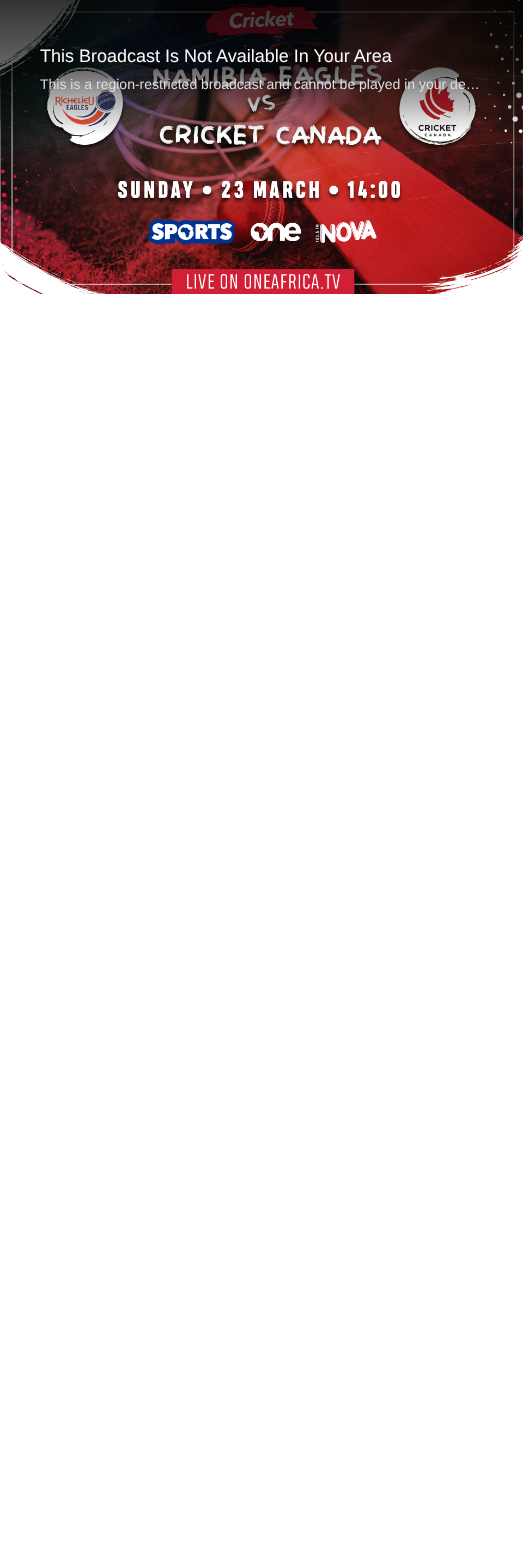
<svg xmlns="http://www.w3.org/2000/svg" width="523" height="1544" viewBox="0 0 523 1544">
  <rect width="100%" height="100%" fill="#fff"/>
  <image x="0" y="0" width="523" height="294" href="img/1.png"/>
  <text x="40" y="62" font-family="Liberation Sans" font-size="18" fill="#fafafa">This Broadcast Is Not Available In Your Area</text>
  <text x="40" y="89" font-family="Liberation Sans" font-size="14" fill="#ddd">This is a region-restricted broadcast and cannot be played in your de…</text>
</svg>
